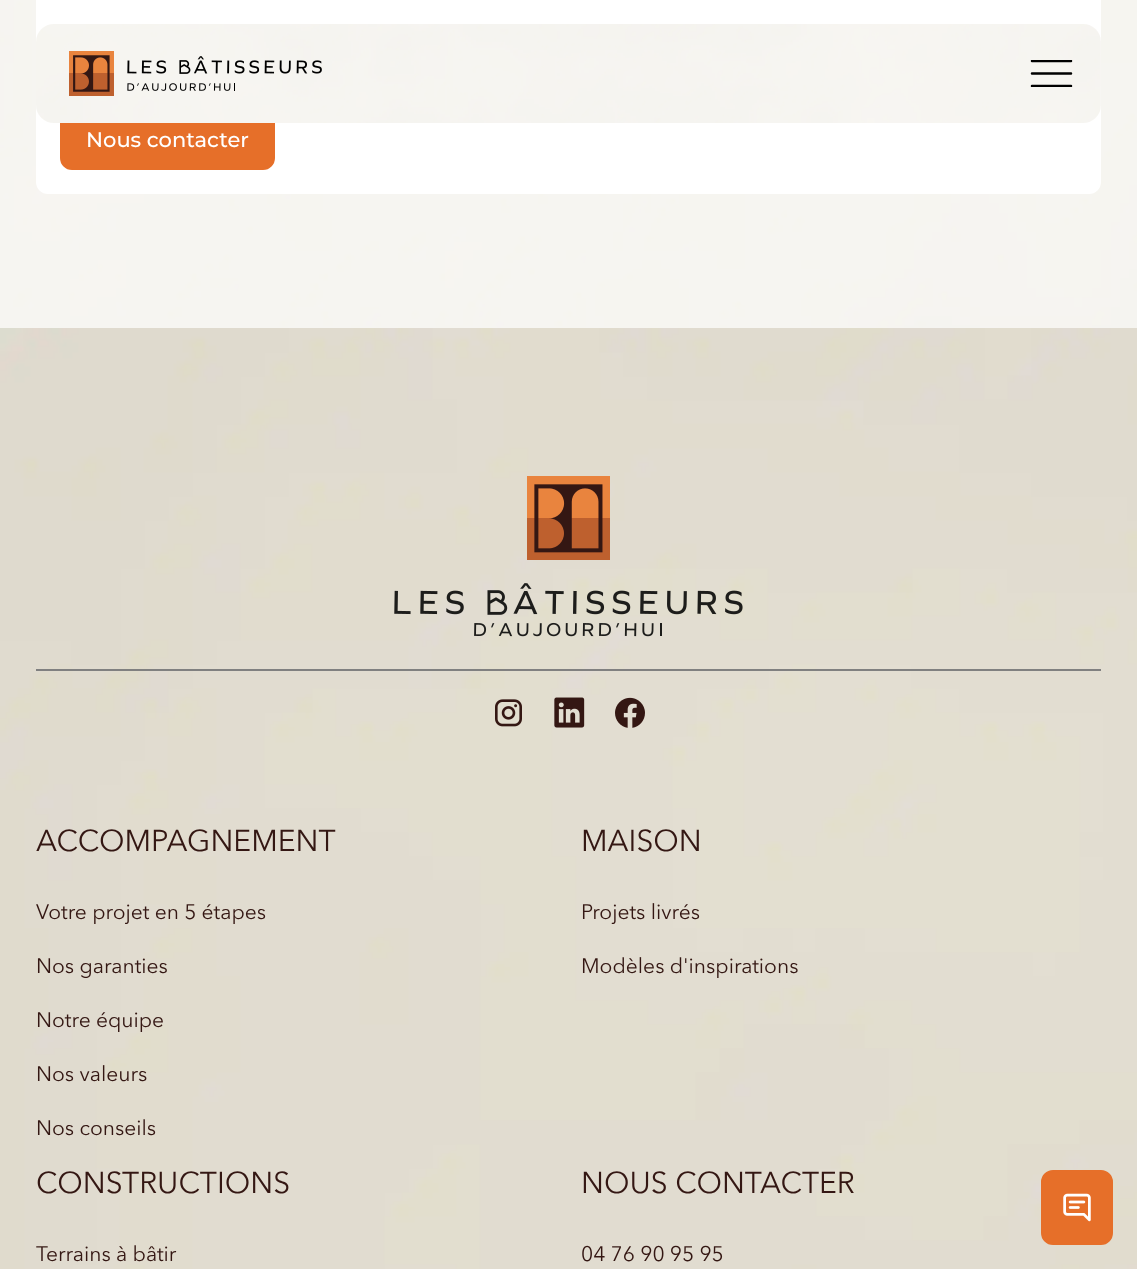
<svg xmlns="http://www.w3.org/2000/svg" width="1137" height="1269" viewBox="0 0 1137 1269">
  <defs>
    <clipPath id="clip1"><path d="M1026 60h51v27H1026z"/></clipPath>
  </defs>
  <rect width="100%" height="100%" fill="#fff"/>
  <image x="0" y="0" width="1137" height="328" href="img/3.png"/>
  <rect x="36" y="-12" width="1065" height="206" rx="12" fill="#fff"/>
  <rect x="61" y="111" width="213" height="58" rx="11" fill="#e66f29" stroke="#e66f29" stroke-width="2"/>
  <rect x="36" y="24" width="1065" height="99" rx="18" fill="#fff"/>
  <image x="36" y="24" width="1065" height="99" href="img/1.png"/>
  <image x="69" y="51" width="253" height="45" href="img/2.png"/>
  <g clip-path="url(#clip1)">
    <path d="M1032 61H1071M1032 73.5H1071M1032 86H1071" fill="none" stroke="#000" stroke-width="2.5" stroke-linecap="round"/>
  </g>
  <image x="0" y="328" width="1137" height="941" href="img/4.png"/>
  <image x="394" y="476" width="349" height="161" href="img/5.png"/>
  <path d="M36 669h1065v2H36z" fill="#808080"/>
  <image x="495" y="699" width="27" height="28" href="img/6.png"/>
  <image x="554" y="697" width="31" height="31" href="img/7.png"/>
  <image x="615" y="697" width="30" height="31" href="img/8.png"/>
  <rect x="1042" y="1171" width="70" height="73" rx="11" fill="#e66f29" stroke="#e66f29" stroke-width="2"/>
  <image x="1063" y="1193" width="28" height="29" href="img/9.png"/>
  <text x="86" y="147" font-family="Montserrat" font-size="21" font-weight="500" fill="#fff">Nous contacter</text>
  <text x="36" y="851" font-family="Avenir Next" font-size="30" fill="#341713">ACCOMPAGNEMENT</text>
  <g font-family="Avenir Next" font-size="21" fill="#341713">
    <text x="36" y="919">Votre projet en 5 étapes</text>
    <text x="36" y="973">Nos garanties</text>
    <text x="36" y="1027">Notre équipe</text>
    <text x="36" y="1081">Nos valeurs</text>
    <text x="36" y="1135">Nos conseils</text>
  </g>
  <text x="581" y="851" font-family="Avenir Next" font-size="30" fill="#341713">MAISON</text>
  <g font-family="Avenir Next" font-size="21" fill="#341713">
    <text x="581" y="919">Projets livrés</text>
    <text x="581" y="973">Modèles d'inspirations</text>
  </g>
  <text x="36" y="1193" font-family="Avenir Next" font-size="30" fill="#341713">CONSTRUCTIONS</text>
  <text x="36" y="1261" font-family="Avenir Next" font-size="21" fill="#341713">Terrains à bâtir</text>
  <text x="581" y="1193" font-family="Avenir Next" font-size="30" fill="#341713">NOUS CONTACTER</text>
  <text x="581" y="1261" font-family="Avenir Next" font-size="21" fill="#341713">04 76 90 95 95</text>
</svg>
